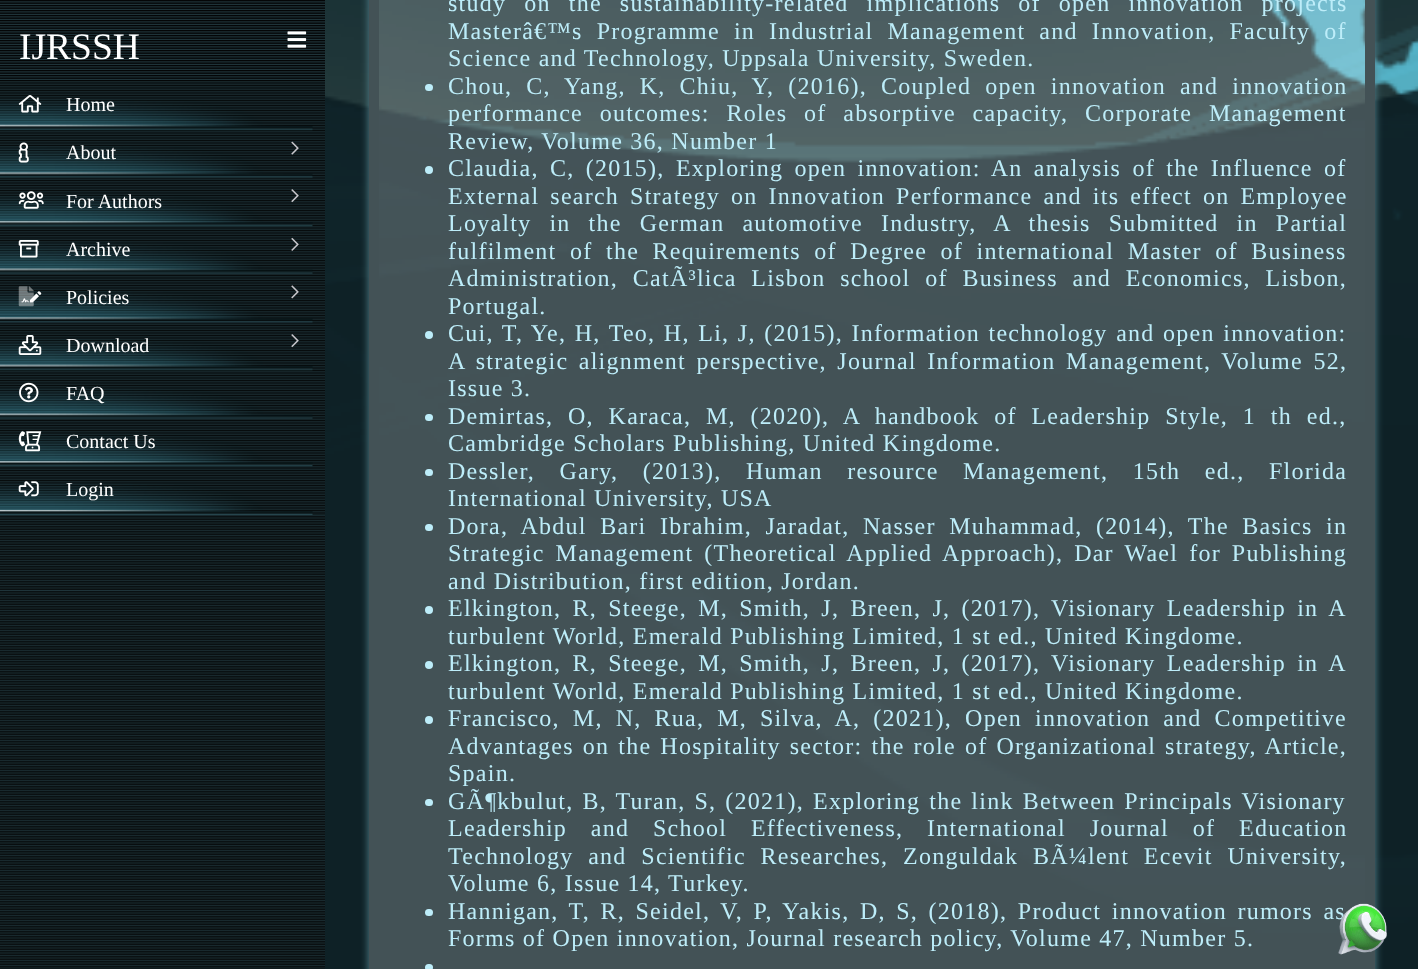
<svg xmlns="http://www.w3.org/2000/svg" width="1418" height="969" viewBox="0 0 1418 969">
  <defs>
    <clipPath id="clip1"><path d="M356 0H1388V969H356ZM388-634H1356C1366.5-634 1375-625.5 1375-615V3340C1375 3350.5 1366.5 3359 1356 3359H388C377.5 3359 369 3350.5 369 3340V-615C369-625.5 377.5-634 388-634Z" clip-rule="evenodd"/></clipPath>
  </defs>
  <rect width="100%" height="100%" fill="#fff"/>
  <image x="0" y="81" width="325" height="888" href="img/1.png"/>
  <image x="0" y="0" width="325" height="81" href="img/2.png"/>
  <image x="287" y="31" width="20" height="17" href="img/3.png"/>
  <image x="325" y="0" width="1093" height="969" href="img/4.png"/>
  <g clip-path="url(#clip1)">
    <rect x="369" y="-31" width="1006" height="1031" rx="19" fill="#558592" filter="blur(4px)"/>
  </g>
  <path d="M374 -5h996v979H374z" fill="none" stroke="#435256" stroke-width="10"/>
  <rect x="425" y="84" width="8" height="7" rx="3.5" fill="#bdedf9"/>
  <circle cx="429" cy="170" r="4" fill="#bdedf9"/>
  <circle cx="429" cy="335" r="4" fill="#bdedf9"/>
  <rect x="425" y="414" width="8" height="7" rx="3.5" fill="#bdedf9"/>
  <rect x="425" y="469" width="8" height="7" rx="3.5" fill="#bdedf9"/>
  <rect x="425" y="524" width="8" height="7" rx="3.5" fill="#bdedf9"/>
  <circle cx="429" cy="610" r="4" fill="#bdedf9"/>
  <circle cx="429" cy="665" r="4" fill="#bdedf9"/>
  <circle cx="429" cy="720" r="4" fill="#bdedf9"/>
  <rect x="425" y="799" width="8" height="7" rx="3.5" fill="#bdedf9"/>
  <rect x="425" y="909" width="8" height="7" rx="3.5" fill="#bdedf9"/>
  <rect x="425" y="964" width="8" height="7" rx="3.5" fill="#bdedf9"/>
  <image x="0" y="514" width="325" height="454" href="img/6.png"/>
  <image x="0" y="81" width="325" height="434" href="img/7.png"/>
  <image x="0" y="99" width="313" height="32" href="img/8.png"/>
  <image x="18" y="95" width="24" height="18" href="img/9.png"/>
  <image x="0" y="146" width="313" height="32" href="img/10.png"/>
  <image x="18" y="142" width="11" height="21" href="img/11.png"/>
  <image x="291" y="141" width="8" height="14" href="img/12.png"/>
  <image x="0" y="195" width="313" height="32" href="img/13.png"/>
  <image x="18" y="191" width="26" height="18" href="img/14.png"/>
  <image x="291" y="189" width="8" height="14" href="img/15.png"/>
  <image x="0" y="242" width="313" height="32" href="img/16.png"/>
  <image x="18" y="240" width="21" height="18" href="img/17.png"/>
  <image x="291" y="237" width="8" height="14" href="img/18.png"/>
  <image x="0" y="291" width="313" height="32" href="img/19.png"/>
  <image x="21" y="291" width="21" height="12" href="img/21.png"/>
  <image x="18" y="286" width="16" height="21" href="img/20.png"/>
  <image x="291" y="285" width="8" height="14" href="img/22.png"/>
  <image x="0" y="339" width="313" height="32" href="img/23.png"/>
  <image x="18" y="335" width="24" height="20" href="img/24.png"/>
  <image x="291" y="334" width="8" height="14" href="img/15.png"/>
  <image x="0" y="388" width="313" height="31" href="img/25.png"/>
  <image x="19" y="382" width="20" height="21" href="img/26.png"/>
  <image x="0" y="434" width="313" height="33" href="img/27.png"/>
  <image x="18" y="431" width="24" height="21" href="img/28.png"/>
  <image x="0" y="483" width="313" height="32" href="img/29.png"/>
  <image x="18" y="481" width="21" height="16" href="img/30.png"/>
  <text x="19" y="59" font-family="Liberation Serif" font-size="37.5" fill="#fff">IJRSSH</text>
  <g font-family="Liberation Serif" font-size="24" letter-spacing="1.25" fill="#bdedf9">
    <text x="448" y="11" word-spacing="10.75">study on the sustainability-related implications of open innovation projects</text>
    <text x="448" y="39" word-spacing="6.75">Masterâ€™s Programme in Industrial Management and Innovation, Faculty of</text>
    <text x="448" y="66">Science and Technology, Uppsala University, Sweden.</text>
    <text x="448" y="94" word-spacing="6.75">Chou, C, Yang, K, Chiu, Y, (2016), Coupled open innovation and innovation</text>
    <text x="448" y="121" word-spacing="9.5">performance outcomes: Roles of absorptive capacity, Corporate Management</text>
    <text x="448" y="149">Review, Volume 36, Number 1</text>
    <text x="448" y="176" word-spacing="4.1">Claudia, C, (2015), Exploring open innovation: An analysis of the Influence of</text>
    <text x="448" y="204" word-spacing="3.75">External search Strategy on Innovation Performance and its effect on Employee</text>
    <text x="448" y="231" word-spacing="10.75">Loyalty in the German automotive Industry, A thesis Submitted in Partial</text>
    <text x="448" y="259" word-spacing="6.25">fulfilment of the Requirements of Degree of international Master of Business</text>
    <text x="448" y="286" word-spacing="7.5">Administration, CatÃ³lica Lisbon school of Business and Economics, Lisbon,</text>
    <text x="448" y="314">Portugal.</text>
    <text x="448" y="341" word-spacing="1.3">Cui, T, Ye, H, Teo, H, Li, J, (2015), Information technology and open innovation:</text>
    <text x="448" y="369" word-spacing="3.25">A strategic alignment perspective, Journal Information Management, Volume 52,</text>
    <text x="448" y="396">Issue 3.</text>
    <text x="448" y="424" word-spacing="7.5">Demirtas, O, Karaca, M, (2020), A handbook of Leadership Style, 1 th ed.,</text>
    <text x="448" y="451">Cambridge Scholars Publishing, United Kingdome.</text>
    <text x="448" y="479" word-spacing="17.25">Dessler, Gary, (2013), Human resource Management, 15th ed., Florida</text>
    <text x="448" y="506">International University, USA</text>
    <text x="448" y="534" word-spacing="6.25">Dora, Abdul Bari Ibrahim, Jaradat, Nasser Muhammad, (2014), The Basics in</text>
    <text x="448" y="561" word-spacing="3.75">Strategic Management (Theoretical Applied Approach), Dar Wael for Publishing</text>
    <text x="448" y="589">and Distribution, first edition, Jordan.</text>
    <text x="448" y="616" word-spacing="4">Elkington, R, Steege, M, Smith, J, Breen, J, (2017), Visionary Leadership in A</text>
    <text x="448" y="644">turbulent World, Emerald Publishing Limited, 1 st ed., United Kingdome.</text>
    <text x="448" y="671" word-spacing="4">Elkington, R, Steege, M, Smith, J, Breen, J, (2017), Visionary Leadership in A</text>
    <text x="448" y="699">turbulent World, Emerald Publishing Limited, 1 st ed., United Kingdome.</text>
    <text x="448" y="726" word-spacing="5.75">Francisco, M, N, Rua, M, Silva, A, (2021), Open innovation and Competitive</text>
    <text x="448" y="754" word-spacing="1.75">Advantages on the Hospitality sector: the role of Organizational strategy, Article,</text>
    <text x="448" y="781">Spain.</text>
    <text x="448" y="809" word-spacing="1.75">GÃ¶kbulut, B, Turan, S, (2021), Exploring the link Between Principals Visionary</text>
    <text x="448" y="836" word-spacing="16.5">Leadership and School Effectiveness, International Journal of Education</text>
    <text x="448" y="864" word-spacing="7.5">Technology and Scientific Researches, Zonguldak BÃ¼lent Ecevit University,</text>
    <text x="448" y="891">Volume 6, Issue 14, Turkey.</text>
    <text x="448" y="919" word-spacing="3.25">Hannigan, T, R, Seidel, V, P, Yakis, D, S, (2018), Product innovation rumors as</text>
    <text x="448" y="946">Forms of Open innovation, Journal research policy, Volume 47, Number 5.</text>
  </g>
  <image x="1338" y="903" width="49" height="52" href="img/5.png"/>
  <g font-family="Liberation Serif" font-size="20" fill="#fff">
    <text x="66" y="111">Home</text>
    <text x="66" y="159">About</text>
    <text x="66" y="208">For Authors</text>
    <text x="66" y="256">Archive</text>
    <text x="66" y="304">Policies</text>
    <text x="66" y="352">Download</text>
    <text x="66" y="400">FAQ</text>
    <text x="66" y="448">Contact Us</text>
    <text x="66" y="496">Login</text>
  </g>
</svg>
